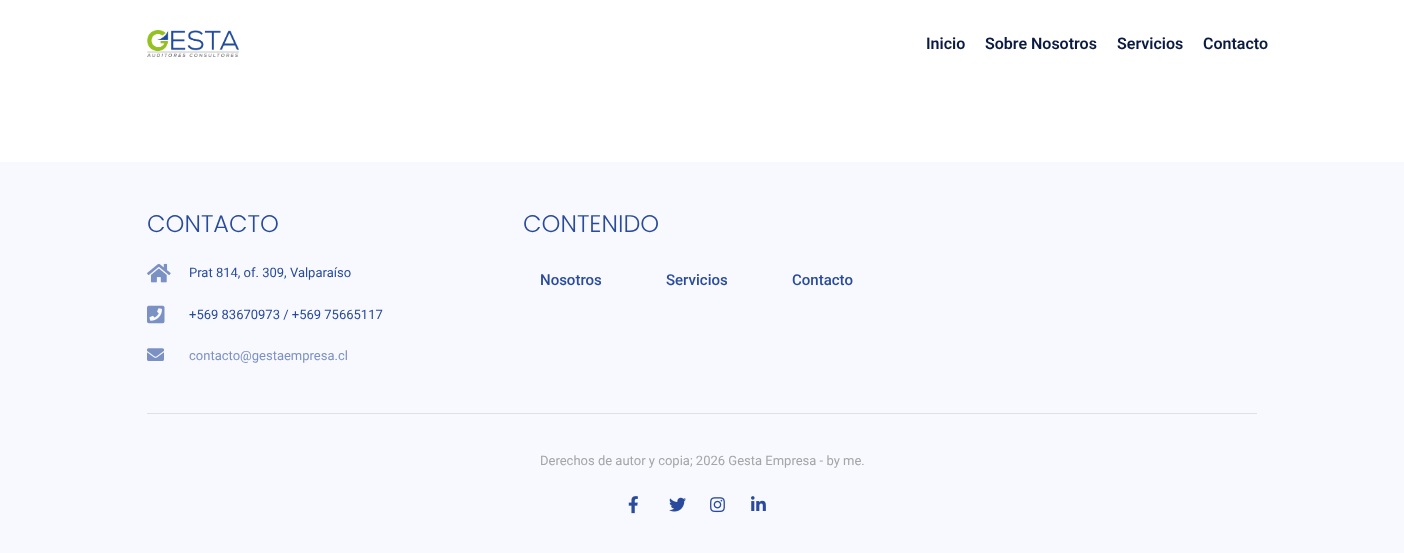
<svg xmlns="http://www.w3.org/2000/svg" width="1404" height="553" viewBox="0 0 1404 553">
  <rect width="100%" height="100%" fill="#fff"/>
  <image x="147" y="30" width="92" height="27" href="img/1.png"/>
  <path d="M0 162h1404v391H0z" fill="#f7f9ff"/>
  <image x="147" y="263" width="24" height="20" href="img/2.png"/>
  <image x="147" y="305" width="18" height="19" href="img/3.png"/>
  <image x="147" y="348" width="17" height="13" href="img/4.png"/>
  <path d="M147 413h1110v1H147z" fill="#dee0e6"/>
  <image x="628" y="496" width="10" height="18" href="img/5.png"/>
  <image x="669" y="497" width="17" height="15" href="img/6.png"/>
  <image x="710" y="497" width="15" height="16" href="img/7.png"/>
  <image x="751" y="496" width="15" height="15" href="img/8.png"/>
  <g font-family="Roboto" font-size="16" font-weight="600" fill="#0a1a40">
    <text x="926" y="49">Inicio</text>
    <text x="985" y="49">Sobre Nosotros</text>
    <text x="1117" y="49">Servicios</text>
    <text x="1203" y="49">Contacto</text>
  </g>
  <text x="147" y="232" font-family="Poppins" font-size="24" font-weight="300" fill="#2a4b9b">CONTACTO</text>
  <g font-family="Roboto" font-size="13" fill="#2a4b9b">
    <text x="189" y="277">Prat 814, of. 309, Valparaíso</text>
    <text x="189" y="319">+569 83670973 / +569 75665117</text>
  </g>
  <text x="189" y="360" font-family="Roboto" font-size="13" fill="#7c91c3">contacto@gestaempresa.cl</text>
  <text x="523" y="232" font-family="Poppins" font-size="24" font-weight="300" fill="#2a4b9b">CONTENIDO</text>
  <g font-family="Roboto" font-size="15" font-weight="500" fill="#2a4b9b">
    <text x="540" y="285">Nosotros</text>
    <text x="666" y="285">Servicios</text>
    <text x="792" y="285">Contacto</text>
  </g>
  <text x="540" y="465" font-family="Roboto" font-size="13" fill="#a5a5a5">Derechos de autor y copia; 2026 Gesta Empresa - by me.</text>
</svg>
